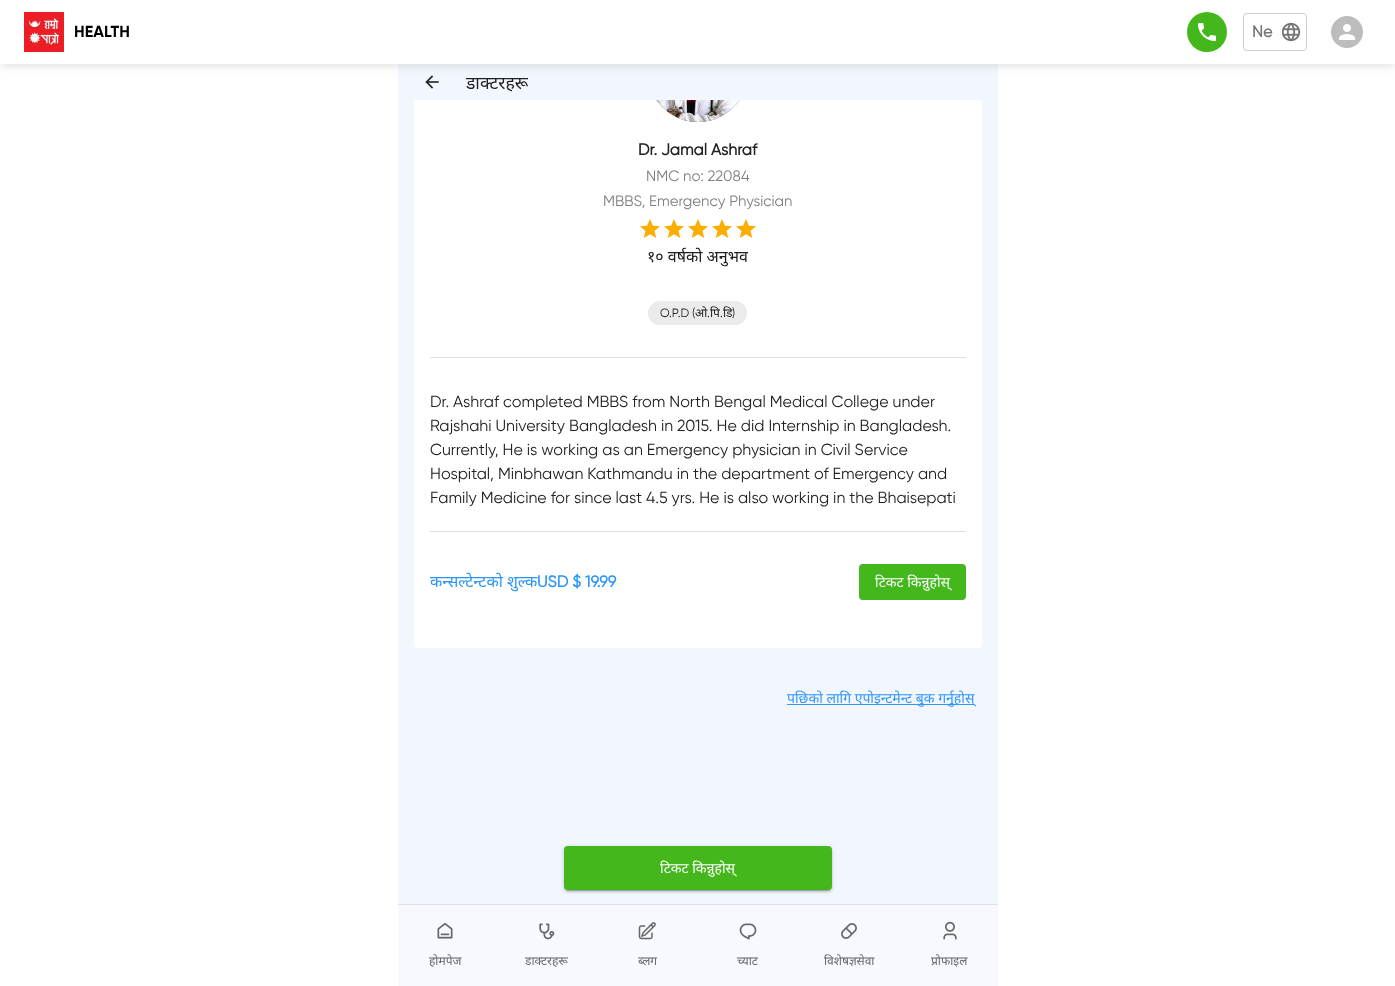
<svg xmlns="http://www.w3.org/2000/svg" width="1395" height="986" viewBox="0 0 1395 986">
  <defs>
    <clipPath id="clip1"><path d="M466 71h62v22H466z"/></clipPath>
  </defs>
  <rect width="100%" height="100%" fill="#fff"/>
  <path d="M398 100h600v804H398z" fill="#f2f6fe"/>
  <rect x="414" y="-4" width="568" height="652" rx="4" fill="#fff"/>
  <circle cx="698" cy="72" r="50" fill="#4d351a"/>
  <path d="M398 64h600v36H398z" fill="#f2f6fe"/>
  <image x="425" y="75" width="14" height="14" href="img/5.png"/>
  <path d="M0 2h1395v64H0z" fill="#63636333" filter="blur(4px)"/>
  <path d="M0 0h1395v64H0z" fill="#fff"/>
  <image x="24" y="12" width="40" height="40" href="img/1.png"/>
  <circle cx="1207" cy="32" r="20" fill="#44b71c"/>
  <image x="1198" y="23" width="18" height="18" href="img/2.png"/>
  <rect x="1243.5" y="13.5" width="63" height="37" rx="3.5" fill="none" stroke="#ccc"/>
  <image x="1281" y="22" width="20" height="20" href="img/3.png"/>
  <circle cx="1347" cy="32" r="16" fill="#bdbdbd"/>
  <image x="1339" y="24" width="16" height="16" href="img/4.png"/>
  <image x="656" y="100" width="84" height="22" href="img/6.png"/>
  <image x="640" y="219" width="20" height="19" href="img/7.png"/>
  <image x="664" y="219" width="20" height="19" href="img/7.png"/>
  <image x="688" y="219" width="20" height="19" href="img/7.png"/>
  <image x="712" y="219" width="20" height="19" href="img/7.png"/>
  <image x="736" y="219" width="20" height="19" href="img/7.png"/>
  <rect x="648" y="301" width="99" height="24" rx="12" fill="#ebebeb"/>
  <path d="M430 357h536v1H430z" fill="#e0e0e0"/>
  <path d="M430 531h536v1H430z" fill="#e0e0e0"/>
  <rect x="859" y="564" width="107" height="36" rx="4" fill="#44b71c"/>
  <path d="M787 704h187v1H787z" fill="#3297fa"/>
  <rect x="564" y="847" width="268" height="44" rx="4" fill="#0000001f" filter="blur(2.5px)"/>
  <rect x="564" y="848" width="268" height="44" rx="4" fill="#00000024" filter="blur(1px)"/>
  <rect x="566" y="851" width="264" height="40" rx="2" fill="#00000033" filter="blur(0.5px)"/>
  <rect x="564" y="846" width="268" height="44" rx="4" fill="#44b71c"/>
  <path d="M398 905h600v81H398z" fill="#f7f9fe"/>
  <path d="M398 904h600v1H398z" fill="#e0e0e0"/>
  <image x="437" y="923" width="16" height="16" href="img/8.png"/>
  <image x="539" y="923" width="16" height="17" href="img/9.png"/>
  <image x="638" y="922" width="18" height="18" href="img/10.png"/>
  <image x="739" y="923" width="18" height="17" href="img/11.png"/>
  <image x="841" y="923" width="16" height="16" href="img/12.png"/>
  <image x="943" y="921" width="14" height="19" href="img/13.png"/>
  <text x="74" y="37" font-family="'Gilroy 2'" font-size="16" font-weight="bold" fill="#000">HEALTH</text>
  <text x="1252" y="37" font-family="Gilroy" font-size="16" font-weight="bold" fill="#757575">Ne</text>
  <g clip-path="url(#clip1)">
    <text x="466" y="89" font-family="Noto Sans" font-size="17.5" fill="#212121">डाक्टरहरू</text>
  </g>
  <text x="638" y="155" font-family="Gilroy" font-size="16" font-weight="bold" fill="#212121">Dr. Jamal Ashraf</text>
  <g font-family="Gilroy" font-size="15" fill="#808080">
    <text x="646" y="181">NMC no: 22084</text>
    <text x="603" y="206">MBBS, Emergency Physician</text>
  </g>
  <text x="647" y="262" font-family="Noto Sans" font-size="16" fill="#212121">१० वर्षको अनुभव</text>
  <text x="660" y="317" font-family="Gilroy" font-size="12" fill="#212121">O.P.D (</text>
  <text x="695" y="317" font-family="Noto Sans" font-size="12" fill="#212121">ओ</text>
  <text x="707" y="317" font-family="Gilroy" font-size="12" fill="#212121">.</text>
  <text x="710" y="317" font-family="Noto Sans" font-size="12" fill="#212121">पि</text>
  <text x="720" y="317" font-family="Gilroy" font-size="12" fill="#212121">.</text>
  <text x="723" y="317" font-family="Noto Sans" font-size="12" fill="#212121">डि</text>
  <text x="732" y="317" font-family="Gilroy" font-size="12" fill="#212121">)</text>
  <g font-family="Gilroy" font-size="16" fill="#212121">
    <text x="430" y="407">Dr. Ashraf completed MBBS from North Bengal Medical College under</text>
    <text x="430" y="431">Rajshahi University Bangladesh in 2015. He did Internship in Bangladesh.</text>
    <text x="430" y="455">Currently, He is working as an Emergency physician in Civil Service</text>
    <text x="430" y="479">Hospital, Minbhawan Kathmandu in the department of Emergency and</text>
    <text x="430" y="503">Family Medicine for since last 4.5 yrs. He is also working in the Bhaisepati</text>
  </g>
  <text x="430" y="587" font-family="Noto Sans" font-size="16" fill="#2c96f8">कन्सल्टेन्टको शुल्क</text>
  <text x="537" y="587" font-family="Gilroy" font-size="16" font-weight="bold" fill="#2c96f8">USD $ 19.99</text>
  <text x="875" y="587" font-family="Noto Sans" font-size="14" fill="#fff">टिकट किन्नुहोस्</text>
  <text x="787" y="703" font-family="Noto Sans" font-size="14" fill="#3297fa">पछिको लागि एपोइन्टमेन्ट बुक गर्नुहोस्</text>
  <text x="660" y="873" font-family="Noto Sans" font-size="14" fill="#fff">टिकट किन्नुहोस्</text>
  <g font-family="Noto Sans" font-size="12" fill="#666">
    <text x="429" y="965">होमपेज</text>
    <text x="525" y="965">डाक्टरहरू</text>
    <text x="638" y="965">ब्लग</text>
    <text x="737" y="965">च्याट</text>
    <text x="824" y="965">विशेषज्ञसेवा</text>
    <text x="931" y="965">प्रोफाइल</text>
  </g>
</svg>
